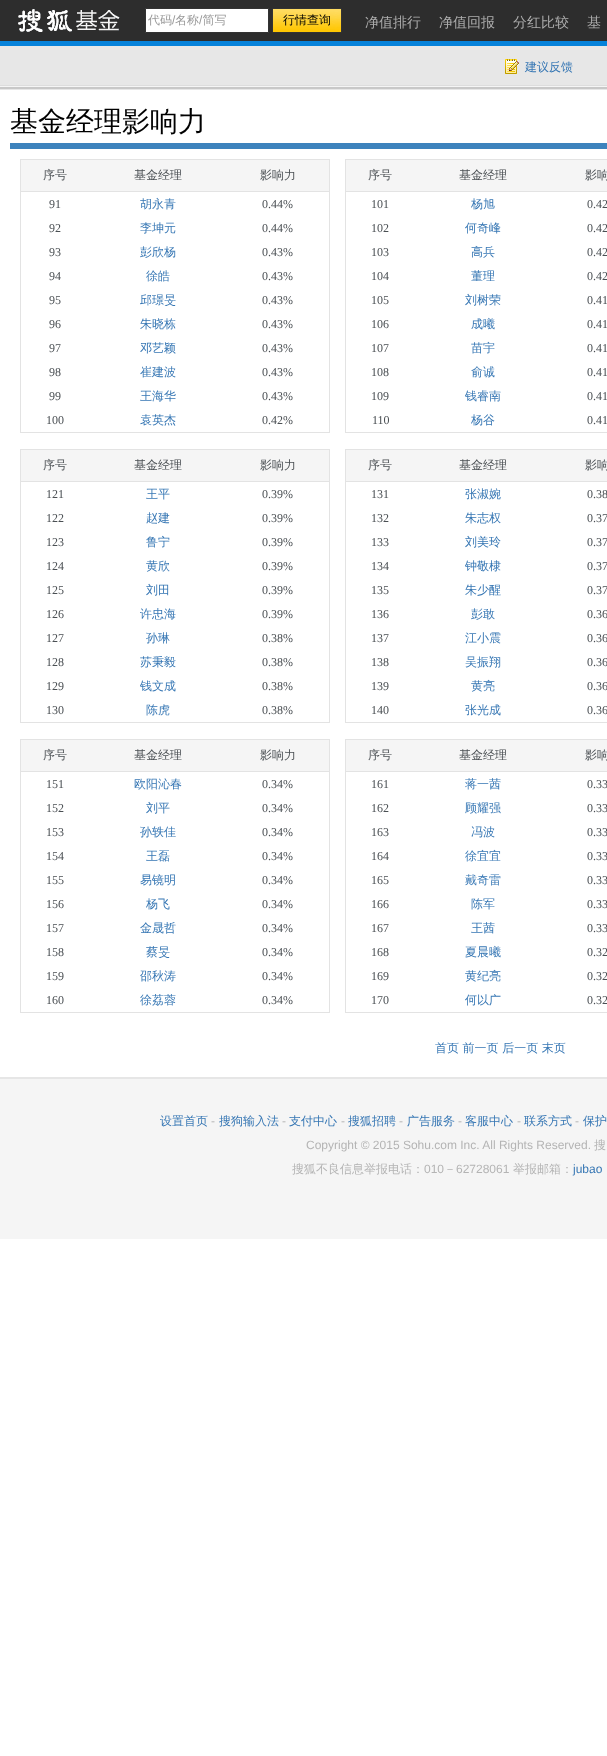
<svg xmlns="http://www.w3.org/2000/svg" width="607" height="1756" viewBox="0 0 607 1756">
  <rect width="100%" height="100%" fill="#fff"/>
  <path d="M0 0h607v41H0z" fill="#2d2d2d"/>
  <path d="M0 41h607v5H0z" fill="#0682da"/>
  <image x="18" y="9" width="102" height="23" href="img/1.png"/>
  <path d="M145.5 8.5h123v24H145.5z" fill="#fff" stroke="#333"/>
  <image x="273" y="9" width="68" height="23" href="img/2.png"/>
  <path d="M272.5 8.5h69v24H272.5z" fill="none" stroke="#333"/>
  <path d="M0 46h607v44H0z" fill="#e7e7e7"/>
  <image x="0" y="85" width="607" height="4" href="img/3.png"/>
  <image x="505" y="59" width="14" height="15" href="img/4.png"/>
  <path d="M10 143h597v6H10z" fill="#3d83bd"/>
  <path d="M20 159h310v1H20z" fill="#e3e3e3"/>
  <path d="M329 159h1v274H329z" fill="#e3e3e3"/>
  <path d="M20 432h310v1H20z" fill="#e3e3e3"/>
  <path d="M20 159h1v274H20z" fill="#e3e3e3"/>
  <path d="M21 160h308v31H21z" fill="#f5f5f5"/>
  <path d="M20 191h310v1H20z" fill="#e3e3e3"/>
  <path d="M345 159h262v1H345z" fill="#e3e3e3"/>
  <path d="M345 432h262v1H345z" fill="#e3e3e3"/>
  <path d="M345 159h1v274H345z" fill="#e3e3e3"/>
  <path d="M346 160h261v31H346z" fill="#f5f5f5"/>
  <path d="M345 191h262v1H345z" fill="#e3e3e3"/>
  <path d="M20 449h310v1H20z" fill="#e3e3e3"/>
  <path d="M329 449h1v274H329z" fill="#e3e3e3"/>
  <path d="M20 722h310v1H20z" fill="#e3e3e3"/>
  <path d="M20 449h1v274H20z" fill="#e3e3e3"/>
  <path d="M21 450h308v31H21z" fill="#f5f5f5"/>
  <path d="M20 481h310v1H20z" fill="#e3e3e3"/>
  <path d="M345 449h262v1H345z" fill="#e3e3e3"/>
  <path d="M345 722h262v1H345z" fill="#e3e3e3"/>
  <path d="M345 449h1v274H345z" fill="#e3e3e3"/>
  <path d="M346 450h261v31H346z" fill="#f5f5f5"/>
  <path d="M345 481h262v1H345z" fill="#e3e3e3"/>
  <path d="M20 739h310v1H20z" fill="#e3e3e3"/>
  <path d="M329 739h1v274H329z" fill="#e3e3e3"/>
  <path d="M20 1012h310v1H20z" fill="#e3e3e3"/>
  <path d="M20 739h1v274H20z" fill="#e3e3e3"/>
  <path d="M21 740h308v31H21z" fill="#f5f5f5"/>
  <path d="M20 771h310v1H20z" fill="#e3e3e3"/>
  <path d="M345 739h262v1H345z" fill="#e3e3e3"/>
  <path d="M345 1012h262v1H345z" fill="#e3e3e3"/>
  <path d="M345 739h1v274H345z" fill="#e3e3e3"/>
  <path d="M346 740h261v31H346z" fill="#f5f5f5"/>
  <path d="M345 771h262v1H345z" fill="#e3e3e3"/>
  <path d="M0 1079h607v160H0z" fill="#f5f5f5"/>
  <path d="M0 1077h607v2H0z" fill="#e6e6e6"/>
  <text x="148" y="24" font-family="WenQuanYi Zen Hei" font-size="12" font-weight="500" fill="#999">代码</text>
  <text x="172" y="24" font-family="Liberation Sans" font-size="12" fill="#999">/</text>
  <text x="175" y="24" font-family="WenQuanYi Zen Hei" font-size="12" font-weight="500" fill="#999">名称 简写</text>
  <text x="199" y="24" font-family="Liberation Sans" font-size="12" fill="#999">/</text>
  <text x="283" y="24" font-family="WenQuanYi Zen Hei" font-size="12" font-weight="500" fill="#000">行情查询</text>
  <g font-family="WenQuanYi Zen Hei" font-size="14" font-weight="500" fill="#adadad">
    <text x="365" y="27">净值排行</text>
    <text x="439" y="27">净值回报</text>
    <text x="513" y="27">分红比较</text>
    <text x="587" y="27">基</text>
  </g>
  <text x="525" y="71" font-family="WenQuanYi Zen Hei" font-size="12" font-weight="500" fill="#3777b4">建议反馈</text>
  <text x="10" y="131" font-family="WenQuanYi Zen Hei" font-size="28" font-weight="500" fill="#000">基金经理影响力</text>
  <g font-family="WenQuanYi Zen Hei" font-size="12" font-weight="500" fill="#4a4f53">
    <text x="43" y="179">序号</text>
    <text x="134" y="179">基金经理</text>
    <text x="260" y="179">影响力</text>
  </g>
  <text x="49" y="208" font-family="Liberation Serif" font-size="12" fill="#4a4f53">91</text>
  <text x="140" y="208" font-family="WenQuanYi Zen Hei" font-size="12" font-weight="500" fill="#3777b4">胡永青</text>
  <g font-family="Liberation Serif" font-size="12" fill="#4a4f53">
    <text x="262" y="208">0.44%</text>
    <text x="49" y="232">92</text>
  </g>
  <text x="140" y="232" font-family="WenQuanYi Zen Hei" font-size="12" font-weight="500" fill="#3777b4">李坤元</text>
  <g font-family="Liberation Serif" font-size="12" fill="#4a4f53">
    <text x="262" y="232">0.44%</text>
    <text x="49" y="256">93</text>
  </g>
  <text x="140" y="256" font-family="WenQuanYi Zen Hei" font-size="12" font-weight="500" fill="#3777b4">彭欣杨</text>
  <g font-family="Liberation Serif" font-size="12" fill="#4a4f53">
    <text x="262" y="256">0.43%</text>
    <text x="49" y="280">94</text>
  </g>
  <text x="146" y="280" font-family="WenQuanYi Zen Hei" font-size="12" font-weight="500" fill="#3777b4">徐皓</text>
  <g font-family="Liberation Serif" font-size="12" fill="#4a4f53">
    <text x="262" y="280">0.43%</text>
    <text x="49" y="304">95</text>
  </g>
  <text x="140" y="304" font-family="WenQuanYi Zen Hei" font-size="12" font-weight="500" fill="#3777b4">邱璟旻</text>
  <g font-family="Liberation Serif" font-size="12" fill="#4a4f53">
    <text x="262" y="304">0.43%</text>
    <text x="49" y="328">96</text>
  </g>
  <text x="140" y="328" font-family="WenQuanYi Zen Hei" font-size="12" font-weight="500" fill="#3777b4">朱晓栋</text>
  <g font-family="Liberation Serif" font-size="12" fill="#4a4f53">
    <text x="262" y="328">0.43%</text>
    <text x="49" y="352">97</text>
  </g>
  <text x="140" y="352" font-family="WenQuanYi Zen Hei" font-size="12" font-weight="500" fill="#3777b4">邓艺颖</text>
  <g font-family="Liberation Serif" font-size="12" fill="#4a4f53">
    <text x="262" y="352">0.43%</text>
    <text x="49" y="376">98</text>
  </g>
  <text x="140" y="376" font-family="WenQuanYi Zen Hei" font-size="12" font-weight="500" fill="#3777b4">崔建波</text>
  <g font-family="Liberation Serif" font-size="12" fill="#4a4f53">
    <text x="262" y="376">0.43%</text>
    <text x="49" y="400">99</text>
  </g>
  <text x="140" y="400" font-family="WenQuanYi Zen Hei" font-size="12" font-weight="500" fill="#3777b4">王海华</text>
  <g font-family="Liberation Serif" font-size="12" fill="#4a4f53">
    <text x="262" y="400">0.43%</text>
    <text x="46" y="424">100</text>
  </g>
  <text x="140" y="424" font-family="WenQuanYi Zen Hei" font-size="12" font-weight="500" fill="#3777b4">袁英杰</text>
  <text x="262" y="424" font-family="Liberation Serif" font-size="12" fill="#4a4f53">0.42%</text>
  <g font-family="WenQuanYi Zen Hei" font-size="12" font-weight="500" fill="#4a4f53">
    <text x="368" y="179">序号</text>
    <text x="459" y="179">基金经理</text>
    <text x="585" y="179">影响</text>
  </g>
  <text x="371" y="208" font-family="Liberation Serif" font-size="12" fill="#4a4f53">101</text>
  <text x="471" y="208" font-family="WenQuanYi Zen Hei" font-size="12" font-weight="500" fill="#3777b4">杨旭</text>
  <g font-family="Liberation Serif" font-size="12" fill="#4a4f53">
    <text x="587" y="208">0.42</text>
    <text x="371" y="232">102</text>
  </g>
  <text x="465" y="232" font-family="WenQuanYi Zen Hei" font-size="12" font-weight="500" fill="#3777b4">何奇峰</text>
  <g font-family="Liberation Serif" font-size="12" fill="#4a4f53">
    <text x="587" y="232">0.42</text>
    <text x="371" y="256">103</text>
  </g>
  <text x="471" y="256" font-family="WenQuanYi Zen Hei" font-size="12" font-weight="500" fill="#3777b4">高兵</text>
  <g font-family="Liberation Serif" font-size="12" fill="#4a4f53">
    <text x="587" y="256">0.42</text>
    <text x="371" y="280">104</text>
  </g>
  <text x="471" y="280" font-family="WenQuanYi Zen Hei" font-size="12" font-weight="500" fill="#3777b4">董理</text>
  <g font-family="Liberation Serif" font-size="12" fill="#4a4f53">
    <text x="587" y="280">0.42</text>
    <text x="371" y="304">105</text>
  </g>
  <text x="465" y="304" font-family="WenQuanYi Zen Hei" font-size="12" font-weight="500" fill="#3777b4">刘树荣</text>
  <g font-family="Liberation Serif" font-size="12" fill="#4a4f53">
    <text x="587" y="304">0.41</text>
    <text x="371" y="328">106</text>
  </g>
  <text x="471" y="328" font-family="WenQuanYi Zen Hei" font-size="12" font-weight="500" fill="#3777b4">成曦</text>
  <g font-family="Liberation Serif" font-size="12" fill="#4a4f53">
    <text x="587" y="328">0.41</text>
    <text x="371" y="352">107</text>
  </g>
  <text x="471" y="352" font-family="WenQuanYi Zen Hei" font-size="12" font-weight="500" fill="#3777b4">苗宇</text>
  <g font-family="Liberation Serif" font-size="12" fill="#4a4f53">
    <text x="587" y="352">0.41</text>
    <text x="371" y="376">108</text>
  </g>
  <text x="471" y="376" font-family="WenQuanYi Zen Hei" font-size="12" font-weight="500" fill="#3777b4">俞诚</text>
  <g font-family="Liberation Serif" font-size="12" fill="#4a4f53">
    <text x="587" y="376">0.41</text>
    <text x="371" y="400">109</text>
  </g>
  <text x="465" y="400" font-family="WenQuanYi Zen Hei" font-size="12" font-weight="500" fill="#3777b4">钱睿南</text>
  <g font-family="Liberation Serif" font-size="12" fill="#4a4f53">
    <text x="587" y="400">0.41</text>
    <text x="372" y="424">110</text>
  </g>
  <text x="471" y="424" font-family="WenQuanYi Zen Hei" font-size="12" font-weight="500" fill="#3777b4">杨谷</text>
  <text x="587" y="424" font-family="Liberation Serif" font-size="12" fill="#4a4f53">0.41</text>
  <g font-family="WenQuanYi Zen Hei" font-size="12" font-weight="500" fill="#4a4f53">
    <text x="43" y="469">序号</text>
    <text x="134" y="469">基金经理</text>
    <text x="260" y="469">影响力</text>
  </g>
  <text x="46" y="498" font-family="Liberation Serif" font-size="12" fill="#4a4f53">121</text>
  <text x="146" y="498" font-family="WenQuanYi Zen Hei" font-size="12" font-weight="500" fill="#3777b4">王平</text>
  <g font-family="Liberation Serif" font-size="12" fill="#4a4f53">
    <text x="262" y="498">0.39%</text>
    <text x="46" y="522">122</text>
  </g>
  <text x="146" y="522" font-family="WenQuanYi Zen Hei" font-size="12" font-weight="500" fill="#3777b4">赵建</text>
  <g font-family="Liberation Serif" font-size="12" fill="#4a4f53">
    <text x="262" y="522">0.39%</text>
    <text x="46" y="546">123</text>
  </g>
  <text x="146" y="546" font-family="WenQuanYi Zen Hei" font-size="12" font-weight="500" fill="#3777b4">鲁宁</text>
  <g font-family="Liberation Serif" font-size="12" fill="#4a4f53">
    <text x="262" y="546">0.39%</text>
    <text x="46" y="570">124</text>
  </g>
  <text x="146" y="570" font-family="WenQuanYi Zen Hei" font-size="12" font-weight="500" fill="#3777b4">黄欣</text>
  <g font-family="Liberation Serif" font-size="12" fill="#4a4f53">
    <text x="262" y="570">0.39%</text>
    <text x="46" y="594">125</text>
  </g>
  <text x="146" y="594" font-family="WenQuanYi Zen Hei" font-size="12" font-weight="500" fill="#3777b4">刘田</text>
  <g font-family="Liberation Serif" font-size="12" fill="#4a4f53">
    <text x="262" y="594">0.39%</text>
    <text x="46" y="618">126</text>
  </g>
  <text x="140" y="618" font-family="WenQuanYi Zen Hei" font-size="12" font-weight="500" fill="#3777b4">许忠海</text>
  <g font-family="Liberation Serif" font-size="12" fill="#4a4f53">
    <text x="262" y="618">0.39%</text>
    <text x="46" y="642">127</text>
  </g>
  <text x="146" y="642" font-family="WenQuanYi Zen Hei" font-size="12" font-weight="500" fill="#3777b4">孙琳</text>
  <g font-family="Liberation Serif" font-size="12" fill="#4a4f53">
    <text x="262" y="642">0.38%</text>
    <text x="46" y="666">128</text>
  </g>
  <text x="140" y="666" font-family="WenQuanYi Zen Hei" font-size="12" font-weight="500" fill="#3777b4">苏秉毅</text>
  <g font-family="Liberation Serif" font-size="12" fill="#4a4f53">
    <text x="262" y="666">0.38%</text>
    <text x="46" y="690">129</text>
  </g>
  <text x="140" y="690" font-family="WenQuanYi Zen Hei" font-size="12" font-weight="500" fill="#3777b4">钱文成</text>
  <g font-family="Liberation Serif" font-size="12" fill="#4a4f53">
    <text x="262" y="690">0.38%</text>
    <text x="46" y="714">130</text>
  </g>
  <text x="146" y="714" font-family="WenQuanYi Zen Hei" font-size="12" font-weight="500" fill="#3777b4">陈虎</text>
  <text x="262" y="714" font-family="Liberation Serif" font-size="12" fill="#4a4f53">0.38%</text>
  <g font-family="WenQuanYi Zen Hei" font-size="12" font-weight="500" fill="#4a4f53">
    <text x="368" y="469">序号</text>
    <text x="459" y="469">基金经理</text>
    <text x="585" y="469">影响</text>
  </g>
  <text x="371" y="498" font-family="Liberation Serif" font-size="12" fill="#4a4f53">131</text>
  <text x="465" y="498" font-family="WenQuanYi Zen Hei" font-size="12" font-weight="500" fill="#3777b4">张淑婉</text>
  <g font-family="Liberation Serif" font-size="12" fill="#4a4f53">
    <text x="587" y="498">0.38</text>
    <text x="371" y="522">132</text>
  </g>
  <text x="465" y="522" font-family="WenQuanYi Zen Hei" font-size="12" font-weight="500" fill="#3777b4">朱志权</text>
  <g font-family="Liberation Serif" font-size="12" fill="#4a4f53">
    <text x="587" y="522">0.37</text>
    <text x="371" y="546">133</text>
  </g>
  <text x="465" y="546" font-family="WenQuanYi Zen Hei" font-size="12" font-weight="500" fill="#3777b4">刘美玲</text>
  <g font-family="Liberation Serif" font-size="12" fill="#4a4f53">
    <text x="587" y="546">0.37</text>
    <text x="371" y="570">134</text>
  </g>
  <text x="465" y="570" font-family="WenQuanYi Zen Hei" font-size="12" font-weight="500" fill="#3777b4">钟敬棣</text>
  <g font-family="Liberation Serif" font-size="12" fill="#4a4f53">
    <text x="587" y="570">0.37</text>
    <text x="371" y="594">135</text>
  </g>
  <text x="465" y="594" font-family="WenQuanYi Zen Hei" font-size="12" font-weight="500" fill="#3777b4">朱少醒</text>
  <g font-family="Liberation Serif" font-size="12" fill="#4a4f53">
    <text x="587" y="594">0.37</text>
    <text x="371" y="618">136</text>
  </g>
  <text x="471" y="618" font-family="WenQuanYi Zen Hei" font-size="12" font-weight="500" fill="#3777b4">彭敢</text>
  <g font-family="Liberation Serif" font-size="12" fill="#4a4f53">
    <text x="587" y="618">0.36</text>
    <text x="371" y="642">137</text>
  </g>
  <text x="465" y="642" font-family="WenQuanYi Zen Hei" font-size="12" font-weight="500" fill="#3777b4">江小震</text>
  <g font-family="Liberation Serif" font-size="12" fill="#4a4f53">
    <text x="587" y="642">0.36</text>
    <text x="371" y="666">138</text>
  </g>
  <text x="465" y="666" font-family="WenQuanYi Zen Hei" font-size="12" font-weight="500" fill="#3777b4">吴振翔</text>
  <g font-family="Liberation Serif" font-size="12" fill="#4a4f53">
    <text x="587" y="666">0.36</text>
    <text x="371" y="690">139</text>
  </g>
  <text x="471" y="690" font-family="WenQuanYi Zen Hei" font-size="12" font-weight="500" fill="#3777b4">黄亮</text>
  <g font-family="Liberation Serif" font-size="12" fill="#4a4f53">
    <text x="587" y="690">0.36</text>
    <text x="371" y="714">140</text>
  </g>
  <text x="465" y="714" font-family="WenQuanYi Zen Hei" font-size="12" font-weight="500" fill="#3777b4">张光成</text>
  <text x="587" y="714" font-family="Liberation Serif" font-size="12" fill="#4a4f53">0.36</text>
  <g font-family="WenQuanYi Zen Hei" font-size="12" font-weight="500" fill="#4a4f53">
    <text x="43" y="759">序号</text>
    <text x="134" y="759">基金经理</text>
    <text x="260" y="759">影响力</text>
  </g>
  <text x="46" y="788" font-family="Liberation Serif" font-size="12" fill="#4a4f53">151</text>
  <text x="134" y="788" font-family="WenQuanYi Zen Hei" font-size="12" font-weight="500" fill="#3777b4">欧阳沁春</text>
  <g font-family="Liberation Serif" font-size="12" fill="#4a4f53">
    <text x="262" y="788">0.34%</text>
    <text x="46" y="812">152</text>
  </g>
  <text x="146" y="812" font-family="WenQuanYi Zen Hei" font-size="12" font-weight="500" fill="#3777b4">刘平</text>
  <g font-family="Liberation Serif" font-size="12" fill="#4a4f53">
    <text x="262" y="812">0.34%</text>
    <text x="46" y="836">153</text>
  </g>
  <text x="140" y="836" font-family="WenQuanYi Zen Hei" font-size="12" font-weight="500" fill="#3777b4">孙轶佳</text>
  <g font-family="Liberation Serif" font-size="12" fill="#4a4f53">
    <text x="262" y="836">0.34%</text>
    <text x="46" y="860">154</text>
  </g>
  <text x="146" y="860" font-family="WenQuanYi Zen Hei" font-size="12" font-weight="500" fill="#3777b4">王磊</text>
  <g font-family="Liberation Serif" font-size="12" fill="#4a4f53">
    <text x="262" y="860">0.34%</text>
    <text x="46" y="884">155</text>
  </g>
  <text x="140" y="884" font-family="WenQuanYi Zen Hei" font-size="12" font-weight="500" fill="#3777b4">易镜明</text>
  <g font-family="Liberation Serif" font-size="12" fill="#4a4f53">
    <text x="262" y="884">0.34%</text>
    <text x="46" y="908">156</text>
  </g>
  <text x="146" y="908" font-family="WenQuanYi Zen Hei" font-size="12" font-weight="500" fill="#3777b4">杨飞</text>
  <g font-family="Liberation Serif" font-size="12" fill="#4a4f53">
    <text x="262" y="908">0.34%</text>
    <text x="46" y="932">157</text>
  </g>
  <text x="140" y="932" font-family="WenQuanYi Zen Hei" font-size="12" font-weight="500" fill="#3777b4">金晟哲</text>
  <g font-family="Liberation Serif" font-size="12" fill="#4a4f53">
    <text x="262" y="932">0.34%</text>
    <text x="46" y="956">158</text>
  </g>
  <text x="146" y="956" font-family="WenQuanYi Zen Hei" font-size="12" font-weight="500" fill="#3777b4">蔡旻</text>
  <g font-family="Liberation Serif" font-size="12" fill="#4a4f53">
    <text x="262" y="956">0.34%</text>
    <text x="46" y="980">159</text>
  </g>
  <text x="140" y="980" font-family="WenQuanYi Zen Hei" font-size="12" font-weight="500" fill="#3777b4">邵秋涛</text>
  <g font-family="Liberation Serif" font-size="12" fill="#4a4f53">
    <text x="262" y="980">0.34%</text>
    <text x="46" y="1004">160</text>
  </g>
  <text x="140" y="1004" font-family="WenQuanYi Zen Hei" font-size="12" font-weight="500" fill="#3777b4">徐荔蓉</text>
  <text x="262" y="1004" font-family="Liberation Serif" font-size="12" fill="#4a4f53">0.34%</text>
  <g font-family="WenQuanYi Zen Hei" font-size="12" font-weight="500" fill="#4a4f53">
    <text x="368" y="759">序号</text>
    <text x="459" y="759">基金经理</text>
    <text x="585" y="759">影响</text>
  </g>
  <text x="371" y="788" font-family="Liberation Serif" font-size="12" fill="#4a4f53">161</text>
  <text x="465" y="788" font-family="WenQuanYi Zen Hei" font-size="12" font-weight="500" fill="#3777b4">蒋一茜</text>
  <g font-family="Liberation Serif" font-size="12" fill="#4a4f53">
    <text x="587" y="788">0.33</text>
    <text x="371" y="812">162</text>
  </g>
  <text x="465" y="812" font-family="WenQuanYi Zen Hei" font-size="12" font-weight="500" fill="#3777b4">顾耀强</text>
  <g font-family="Liberation Serif" font-size="12" fill="#4a4f53">
    <text x="587" y="812">0.33</text>
    <text x="371" y="836">163</text>
  </g>
  <text x="471" y="836" font-family="WenQuanYi Zen Hei" font-size="12" font-weight="500" fill="#3777b4">冯波</text>
  <g font-family="Liberation Serif" font-size="12" fill="#4a4f53">
    <text x="587" y="836">0.33</text>
    <text x="371" y="860">164</text>
  </g>
  <text x="465" y="860" font-family="WenQuanYi Zen Hei" font-size="12" font-weight="500" fill="#3777b4">徐宜宜</text>
  <g font-family="Liberation Serif" font-size="12" fill="#4a4f53">
    <text x="587" y="860">0.33</text>
    <text x="371" y="884">165</text>
  </g>
  <text x="465" y="884" font-family="WenQuanYi Zen Hei" font-size="12" font-weight="500" fill="#3777b4">戴奇雷</text>
  <g font-family="Liberation Serif" font-size="12" fill="#4a4f53">
    <text x="587" y="884">0.33</text>
    <text x="371" y="908">166</text>
  </g>
  <text x="471" y="908" font-family="WenQuanYi Zen Hei" font-size="12" font-weight="500" fill="#3777b4">陈军</text>
  <g font-family="Liberation Serif" font-size="12" fill="#4a4f53">
    <text x="587" y="908">0.33</text>
    <text x="371" y="932">167</text>
  </g>
  <text x="471" y="932" font-family="WenQuanYi Zen Hei" font-size="12" font-weight="500" fill="#3777b4">王茜</text>
  <g font-family="Liberation Serif" font-size="12" fill="#4a4f53">
    <text x="587" y="932">0.33</text>
    <text x="371" y="956">168</text>
  </g>
  <text x="465" y="956" font-family="WenQuanYi Zen Hei" font-size="12" font-weight="500" fill="#3777b4">夏晨曦</text>
  <g font-family="Liberation Serif" font-size="12" fill="#4a4f53">
    <text x="587" y="956">0.32</text>
    <text x="371" y="980">169</text>
  </g>
  <text x="465" y="980" font-family="WenQuanYi Zen Hei" font-size="12" font-weight="500" fill="#3777b4">黄纪亮</text>
  <g font-family="Liberation Serif" font-size="12" fill="#4a4f53">
    <text x="587" y="980">0.32</text>
    <text x="371" y="1004">170</text>
  </g>
  <text x="465" y="1004" font-family="WenQuanYi Zen Hei" font-size="12" font-weight="500" fill="#3777b4">何以广</text>
  <text x="587" y="1004" font-family="Liberation Serif" font-size="12" fill="#4a4f53">0.32</text>
  <g font-family="WenQuanYi Zen Hei" font-size="12" font-weight="500" fill="#3777b4">
    <text x="435" y="1052">首页 前一页 后一页 末页</text>
    <text x="160" y="1125">设置首页</text>
  </g>
  <text x="211" y="1125" font-family="Liberation Sans" font-size="12" fill="#b4b4b4">-</text>
  <text x="219" y="1125" font-family="WenQuanYi Zen Hei" font-size="12" font-weight="500" fill="#3777b4">搜狗输入法</text>
  <text x="282" y="1125" font-family="Liberation Sans" font-size="12" fill="#b4b4b4">-</text>
  <text x="289" y="1125" font-family="WenQuanYi Zen Hei" font-size="12" font-weight="500" fill="#3777b4">支付中心</text>
  <text x="341" y="1125" font-family="Liberation Sans" font-size="12" fill="#b4b4b4">-</text>
  <text x="348" y="1125" font-family="WenQuanYi Zen Hei" font-size="12" font-weight="500" fill="#3777b4">搜狐招聘</text>
  <text x="399" y="1125" font-family="Liberation Sans" font-size="12" fill="#b4b4b4">-</text>
  <text x="407" y="1125" font-family="WenQuanYi Zen Hei" font-size="12" font-weight="500" fill="#3777b4">广告服务</text>
  <text x="458" y="1125" font-family="Liberation Sans" font-size="12" fill="#b4b4b4">-</text>
  <text x="465" y="1125" font-family="WenQuanYi Zen Hei" font-size="12" font-weight="500" fill="#3777b4">客服中心</text>
  <text x="517" y="1125" font-family="Liberation Sans" font-size="12" fill="#b4b4b4">-</text>
  <text x="524" y="1125" font-family="WenQuanYi Zen Hei" font-size="12" font-weight="500" fill="#3777b4">联系方式</text>
  <text x="575" y="1125" font-family="Liberation Sans" font-size="12" fill="#b4b4b4">-</text>
  <text x="583" y="1125" font-family="WenQuanYi Zen Hei" font-size="12" font-weight="500" fill="#3777b4">保护</text>
  <text x="306" y="1149" font-family="Liberation Sans" font-size="12" fill="#b4b4b4">Copyright © 2015 Sohu.com Inc. All Rights Reserved.</text>
  <g font-family="WenQuanYi Zen Hei" font-size="12" font-weight="500" fill="#b4b4b4">
    <text x="594" y="1149">搜</text>
    <text x="292" y="1173">搜狐不良信息举报电话：</text>
  </g>
  <text x="424" y="1173" font-family="Liberation Sans" font-size="12" fill="#b4b4b4">010</text>
  <text x="444" y="1173" font-family="WenQuanYi Zen Hei" font-size="12" font-weight="500" fill="#b4b4b4">－</text>
  <text x="456" y="1173" font-family="Liberation Sans" font-size="12" fill="#b4b4b4">62728061</text>
  <text x="513" y="1173" font-family="WenQuanYi Zen Hei" font-size="12" font-weight="500" fill="#b4b4b4">举报邮箱：</text>
  <text x="573" y="1173" font-family="Liberation Sans" font-size="12" fill="#3777b4">jubao</text>
</svg>
